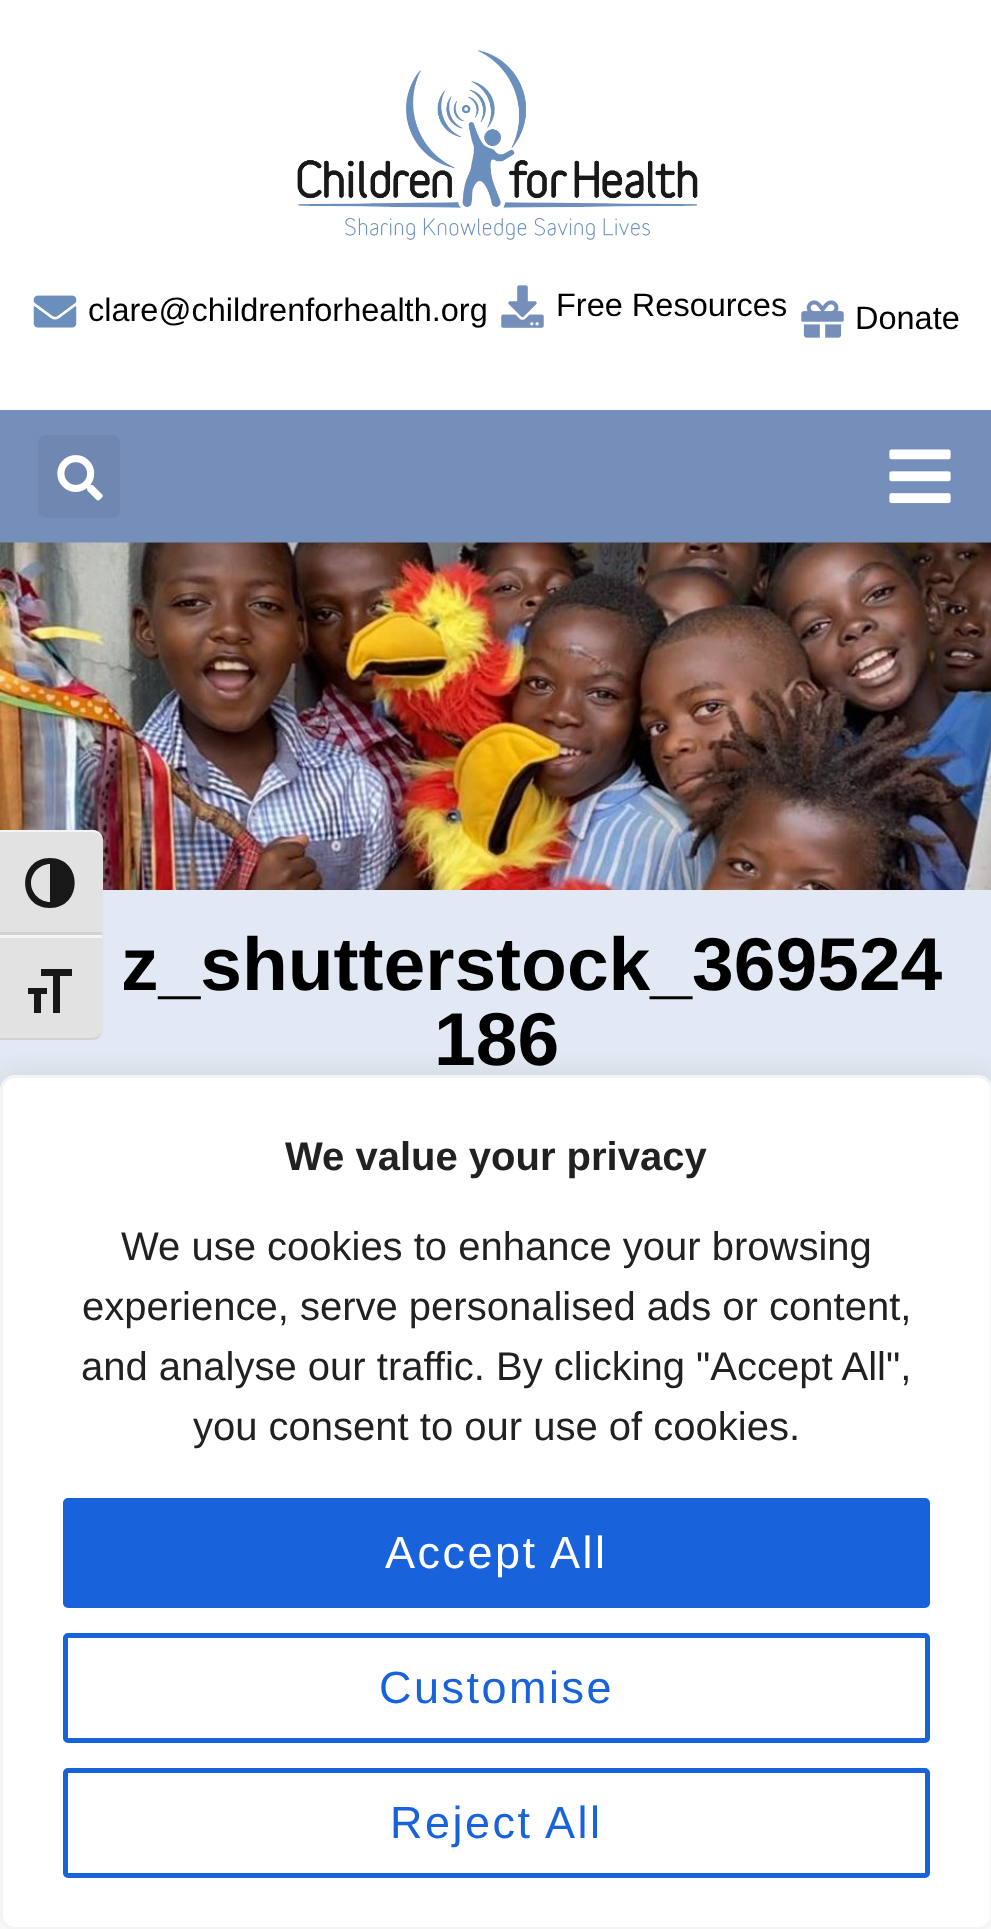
<svg xmlns="http://www.w3.org/2000/svg" width="991" height="1929" viewBox="0 0 991 1929">
  <rect width="100%" height="100%" fill="#fff"/>
  <path d="M0 410h991v133H0z" fill="#768eba"/>
  <image x="0" y="542" width="991" height="348" href="img/7.png"/>
  <path d="M0 890h991v200H0z" fill="#e2e9f4"/>
  <path d="M0 830H93C98.5 830 103 834.5 103 840V935H0Z" fill="#e2e2e2"/>
  <path d="M0 830V832H92C98 832 102 836 102 840C102 834 98 830 92 830Z" fill="#f5f5f5"/>
  <path d="M0 932h102v3H0z" fill="#d2d2d2"/>
  <path d="M50 858C17 858 17 908 50 908C83 908 83 858 50 858ZM31 883C31 873 40 864 50 864V902C40 902 31 893 31 883Z" fill="#181818"/>
  <path d="M0 935H103V1030C103 1035.5 98.5 1040 93 1040H0Z" fill="#e2e2e2"/>
  <path d="M0 935h102v3H0z" fill="#f5f5f5"/>
  <path d="M92 1040C98 1040 102 1036 102 1030C102 1034 98 1038 92 1038H0V1040Z" fill="#d2d2d2"/>
  <path d="M28 988H47V994H41V1013H34V994H28ZM72 976H60V1013H53V976H41V969H72Z" fill="#181818"/>
  <image x="297" y="50" width="401" height="190" href="img/1.png"/>
  <image x="33" y="295" width="44" height="33" href="img/2.png"/>
  <image x="501" y="285" width="43" height="43" href="img/3.png"/>
  <image x="801" y="300" width="43" height="38" href="img/4.png"/>
  <rect x="38" y="435" width="82" height="83" rx="8" fill="#7087b1"/>
  <image x="57" y="455" width="46" height="46" href="img/5.png"/>
  <image x="889" y="449" width="62" height="55" href="img/6.png"/>
  <rect y="1073" width="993" height="855" rx="15" fill="#acabab4d" filter="blur(12.5px)"/>
  <rect x="1.5" y="1076.5" width="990" height="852" rx="13.5" fill="#fff" stroke="#f4f4f4" stroke-width="3"/>
  <rect x="65.5" y="1500.5" width="862" height="105" rx="2.5" fill="#1863dc" stroke="#1863dc" stroke-width="5"/>
  <rect x="65.5" y="1635.5" width="862" height="105" rx="2.5" fill="none" stroke="#1863dc" stroke-width="5"/>
  <rect x="65.5" y="1770.5" width="862" height="105" rx="2.5" fill="none" stroke="#1863dc" stroke-width="5"/>
  <g font-family="Liberation Sans" font-size="32.5" fill="#000">
    <text x="88" y="321">clare@childrenforhealth.org</text>
    <text x="556" y="316">Free Resources</text>
    <text x="855" y="329">Donate</text>
  </g>
  <g font-family="Liberation Sans" font-size="75" font-weight="bold" fill="#000">
    <text x="121" y="990">z_shutterstock_369524</text>
    <text x="434" y="1065">186</text>
  </g>
  <text x="285" y="1170" font-family="Liberation Sans" font-size="40" font-weight="bold" fill="#212121">We value your privacy</text>
  <g font-family="Liberation Sans" font-size="40" fill="#212121">
    <text x="121" y="1260">We use cookies to enhance your browsing</text>
    <text x="82" y="1320">experience, serve personalised ads or content,</text>
    <text x="81" y="1380">and analyse our traffic. By clicking "Accept All",</text>
    <text x="193" y="1440">you consent to our use of cookies.</text>
  </g>
  <text x="385" y="1568" font-family="Liberation Sans" font-size="45" letter-spacing="2.5" fill="#fff">Accept All</text>
  <g font-family="Liberation Sans" font-size="45" letter-spacing="2.5" fill="#1863dc">
    <text x="379" y="1703">Customise</text>
    <text x="390" y="1838">Reject All</text>
  </g>
</svg>
